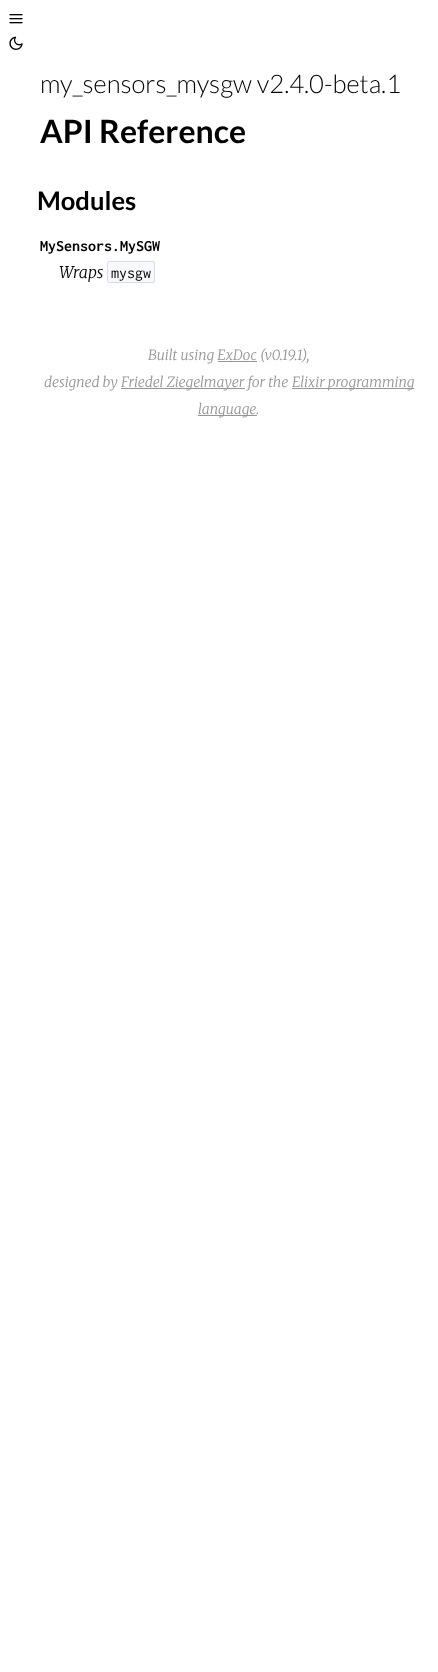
<svg xmlns="http://www.w3.org/2000/svg" width="438" height="1672" viewBox="0 0 438 1672">
  <rect width="100%" height="100%" fill="#fff"/>
  <image x="9" y="14" width="14" height="10" href="img/1.png"/>
  <image x="9" y="36" width="14" height="14" href="img/2.png"/>
  <rect x="107.5" y="261.5" width="47" height="21" rx="1.5" fill="#f7f9fc" stroke="#d2ddee"/>
  <path d="M218 361h39v1H218z" fill="#959595"/>
  <path d="M121 388h124v1H121z" fill="#959595"/>
  <path d="M292 388h122v1H292z" fill="#959595"/>
  <path d="M198 415h59v1H198z" fill="#959595"/>
  <text x="40" y="93" font-family="Lato" font-size="25.6" font-weight="300" fill="#000">my_sensors_mysgw v2.4.0-beta.1</text>
  <text x="40" y="143" font-family="Lato" font-size="32" font-weight="bold" fill="#000">API Reference</text>
  <text x="37" y="210" font-family="Lato" font-size="25.6" font-weight="bold" fill="#000">Modules</text>
  <text x="40" y="251" font-family="Inconsolata" font-size="16" font-weight="bold" fill="#000">MySensors.MySGW</text>
  <text x="59" y="278" font-family="Merriweather" font-size="16" font-weight="300" font-style="italic" fill="#000">Wraps</text>
  <text x="111" y="278" font-family="Inconsolata" font-size="16" fill="#000">mysgw</text>
  <g font-family="Merriweather" font-size="14" font-weight="300" font-style="italic" fill="#959595">
    <text x="148" y="360">Built using ExDoc (v0.19.1),</text>
    <text x="44" y="387">designed by</text>
    <text x="121" y="387">Friedel Ziegelmayer for the</text>
    <text x="292" y="387">Elixir programming</text>
    <text x="198" y="414">language.</text>
  </g>
</svg>
